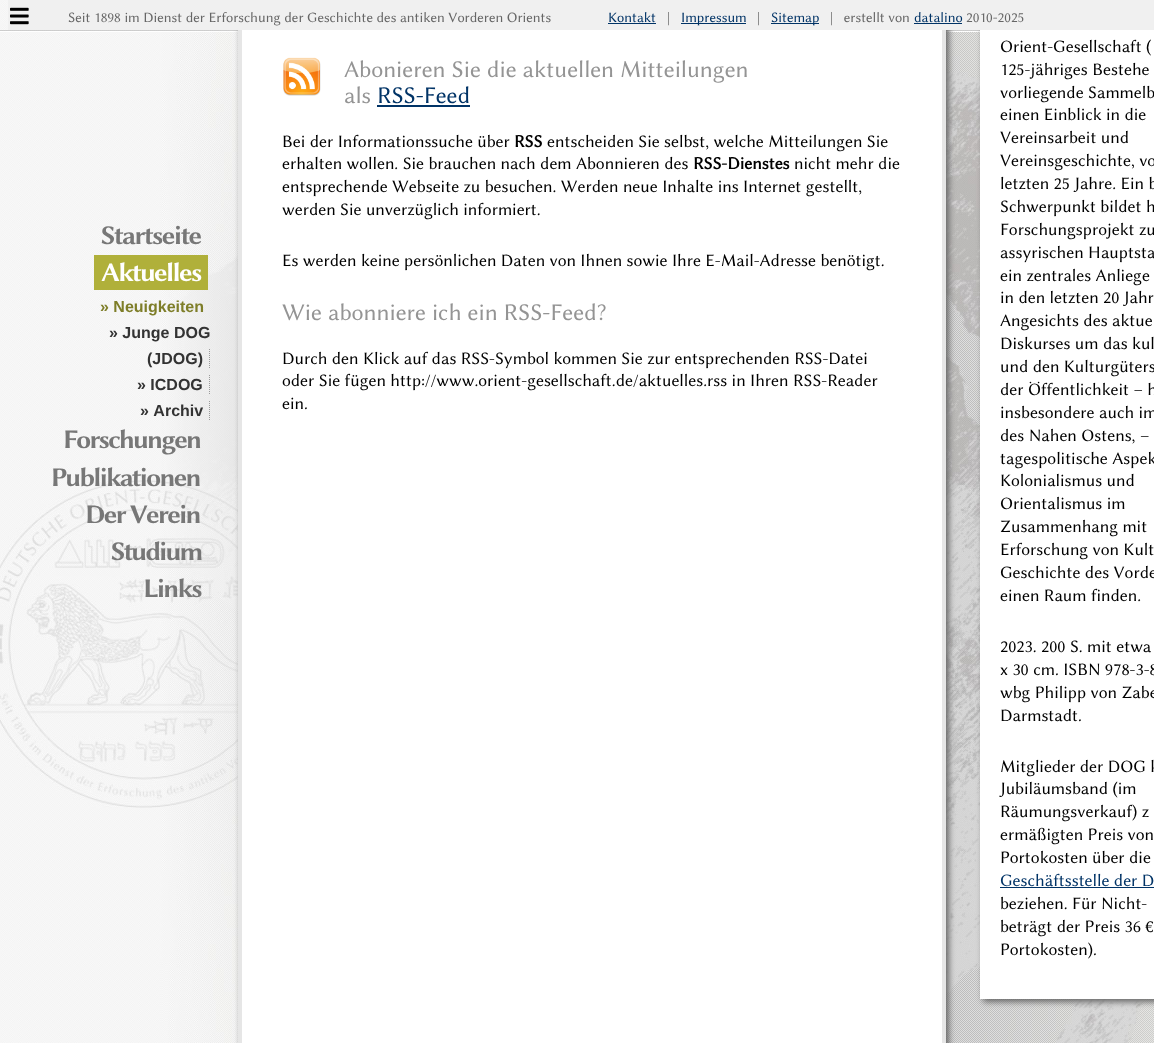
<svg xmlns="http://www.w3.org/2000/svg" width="1154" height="1043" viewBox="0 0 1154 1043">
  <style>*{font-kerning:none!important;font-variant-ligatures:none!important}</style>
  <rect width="100%" height="100%" fill="#fff"/>
  <image x="0" y="0" width="1154" height="1043" href="img/1.png"/>
  <path d="M241 -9h708v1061H241z" fill="#666" filter="blur(3px)"/>
  <path d="M242 30h700v1013H242z" fill="#fff"/>
  <path d="M240 -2h704v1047H240z" fill="none" stroke="#e6e6e6" stroke-width="4"/>
  <path d="M983 -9h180v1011H983z" fill="#666" filter="blur(3px)"/>
  <path d="M8 0h1146v30H8z" fill="#f0f0f0"/>
  <image x="10" y="7" width="19" height="18" href="img/2.png"/>
  <path d="M608 23h48v1H608z" fill="#036"/>
  <path d="M681 23h65v1H681z" fill="#036"/>
  <path d="M771 23h48v1H771z" fill="#036"/>
  <path d="M914 23h48v1H914z" fill="#036"/>
  <path d="M94 255h114v35H94z" fill="#b0b03a"/>
  <path d="M209.5 349V368" fill="none" stroke="#999" stroke-dasharray="1 1"/>
  <path d="M209.5 375V394" fill="none" stroke="#999" stroke-dasharray="1 1"/>
  <path d="M209.5 401V420" fill="none" stroke="#999" stroke-dasharray="1 1"/>
  <image x="283" y="57" width="38" height="39" href="img/3.png"/>
  <path d="M377 105h93v2H377z" fill="#036"/>
  <path d="M980 30h174v969H980z" fill="#fff"/>
  <path d="M1000 887h154v1H1000z" fill="#036"/>
  <text x="68" y="22" font-family="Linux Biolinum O" font-size="14.4" fill="#666">Seit 1898 im Dienst der Erforschung der Geschichte des antiken Vorderen Orients</text>
  <text x="608" y="22" font-family="Linux Biolinum O" font-size="14.4" fill="#036">Kontakt</text>
  <text x="667" y="22" font-family="Linux Biolinum O" font-size="14.4" fill="#666">|</text>
  <text x="681" y="22" font-family="Linux Biolinum O" font-size="14.4" fill="#036">Impressum</text>
  <text x="757" y="22" font-family="Linux Biolinum O" font-size="14.4" fill="#666">|</text>
  <text x="771" y="22" font-family="Linux Biolinum O" font-size="14.4" fill="#036">Sitemap</text>
  <text x="830" y="22" font-family="Linux Biolinum O" font-size="14.4" fill="#666" xml:space="preserve">|   erstellt von</text>
  <text x="914" y="22" font-family="Linux Biolinum O" font-size="14.4" fill="#036">datalino</text>
  <text x="966" y="22" font-family="Linux Biolinum O" font-size="14.4" fill="#666">2010-2025</text>
  <text x="101" y="244" font-family="Linux Biolinum O" font-size="27" font-weight="bold" letter-spacing="-1.6" fill="#777">Startseite</text>
  <text x="101" y="281" font-family="Linux Biolinum O" font-size="27" font-weight="bold" letter-spacing="-1.75" fill="#fff">Aktuelles</text>
  <text x="100" y="312" font-family="Liberation Sans" font-size="16" font-weight="bold" fill="#7e7e29">» Neuigkeiten</text>
  <g font-family="Liberation Sans" font-size="16" font-weight="bold" fill="#333">
    <text x="109" y="338">» Junge DOG</text>
    <text x="147" y="364">(JDOG)</text>
    <text x="137" y="390">» ICDOG</text>
    <text x="140" y="416">» Archiv</text>
  </g>
  <text x="63" y="448" font-family="Linux Biolinum O" font-size="27" font-weight="bold" letter-spacing="-2" fill="#777">Forschungen</text>
  <g font-family="Linux Biolinum O" font-size="27" font-weight="bold" letter-spacing="-1.9" fill="#777">
    <text x="51" y="486">Publikationen</text>
    <text x="85" y="523">Der Verein</text>
  </g>
  <g font-family="Linux Biolinum O" font-size="27" font-weight="bold" letter-spacing="-2" fill="#777">
    <text x="111" y="560">Studium</text>
    <text x="143" y="597">Links</text>
  </g>
  <g font-family="Linux Biolinum O" font-size="24" fill="#949494">
    <text x="344" y="77">Abonieren Sie die aktuellen Mitteilungen</text>
    <text x="344" y="103">als</text>
  </g>
  <text x="377" y="103" font-family="Linux Biolinum O" font-size="24" fill="#036">RSS-Feed</text>
  <text x="282" y="147" font-family="Linux Biolinum O" font-size="17.6" fill="#000">Bei der Informationssuche über</text>
  <text x="514" y="147" font-family="'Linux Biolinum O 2'" font-size="17.6" font-weight="bold" fill="#000">RSS</text>
  <g font-family="Linux Biolinum O" font-size="17.6" fill="#000">
    <text x="547" y="147">entscheiden Sie selbst, welche Mitteilungen Sie</text>
    <text x="282" y="169">erhalten wollen. Sie brauchen nach dem Abonnieren des</text>
  </g>
  <text x="693" y="169" font-family="'Linux Biolinum O 2'" font-size="17.6" font-weight="bold" fill="#000">RSS-Dienstes</text>
  <g font-family="Linux Biolinum O" font-size="17.6" fill="#000">
    <text x="794" y="169">nicht mehr die</text>
    <text x="282" y="192">entsprechende Webseite zu besuchen. Werden neue Inhalte ins Internet gestellt,</text>
    <text x="282" y="215">werden Sie unverzüglich informiert.</text>
    <text x="282" y="266">Es werden keine persönlichen Daten von Ihnen sowie Ihre E-Mail-Adresse benötigt.</text>
  </g>
  <text x="282" y="320" font-family="Linux Biolinum O" font-size="24" fill="#949494">Wie abonniere ich ein RSS-Feed?</text>
  <g font-family="Linux Biolinum O" font-size="17.6" fill="#000">
    <text x="282" y="364">Durch den Klick auf das RSS-Symbol kommen Sie zur entsprechenden RSS-Datei</text>
    <text x="282" y="386">oder Sie fügen http://www.orient-gesellschaft.de/aktuelles.rss in Ihren RSS-Reader</text>
    <text x="282" y="409">ein.</text>
    <text x="1000" y="52">Orient-Gesellschaft (</text>
    <text x="1000" y="75">125-jähriges Bestehe</text>
    <text x="1000" y="98">vorliegende Sammelb</text>
    <text x="1000" y="120">einen Einblick in die</text>
    <text x="1000" y="143">Vereinsarbeit und</text>
    <text x="1000" y="166">Vereinsgeschichte, vo</text>
    <text x="1000" y="189">letzten 25 Jahre. Ein b</text>
    <text x="1000" y="212">Schwerpunkt bildet h</text>
    <text x="1000" y="235">Forschungsprojekt zu</text>
    <text x="1000" y="258">assyrischen Hauptsta</text>
    <text x="1000" y="281">ein zentrales Anliege</text>
    <text x="1000" y="303">in den letzten 20 Jahr</text>
    <text x="1000" y="326">Angesichts des aktue</text>
    <text x="1000" y="349">Diskurses um das kul</text>
    <text x="1000" y="372">und den Kulturgüters</text>
    <text x="1000" y="395">der Öffentlichkeit – h</text>
    <text x="1000" y="418">insbesondere auch im</text>
    <text x="1000" y="441">des Nahen Ostens, –</text>
    <text x="1000" y="464">tagespolitische Aspek</text>
    <text x="1000" y="486">Kolonialismus und</text>
    <text x="1000" y="509">Orientalismus im</text>
    <text x="1000" y="532">Zusammenhang mit</text>
    <text x="1000" y="555">Erforschung von Kult</text>
    <text x="1000" y="578">Geschichte des Vorde</text>
    <text x="1000" y="601">einen Raum finden.</text>
    <text x="1000" y="652">2023. 200 S. mit etwa</text>
    <text x="1000" y="675">x 30 cm. ISBN 978-3-8</text>
    <text x="1000" y="698">wbg Philipp von Zabe</text>
    <text x="1000" y="721">Darmstadt.</text>
    <text x="1000" y="772">Mitglieder der DOG k</text>
    <text x="1000" y="794">Jubiläumsband (im</text>
    <text x="1000" y="817">Räumungsverkauf) z</text>
    <text x="1000" y="840">ermäßigten Preis von</text>
    <text x="1000" y="863">Portokosten über die</text>
  </g>
  <text x="1000" y="886" font-family="Linux Biolinum O" font-size="17.6" fill="#036">Geschäftsstelle der D</text>
  <g font-family="Linux Biolinum O" font-size="17.6" fill="#000">
    <text x="1000" y="909">beziehen. Für Nicht-</text>
    <text x="1000" y="932">beträgt der Preis 36 €</text>
    <text x="1000" y="955">Portokosten).</text>
  </g>
</svg>
